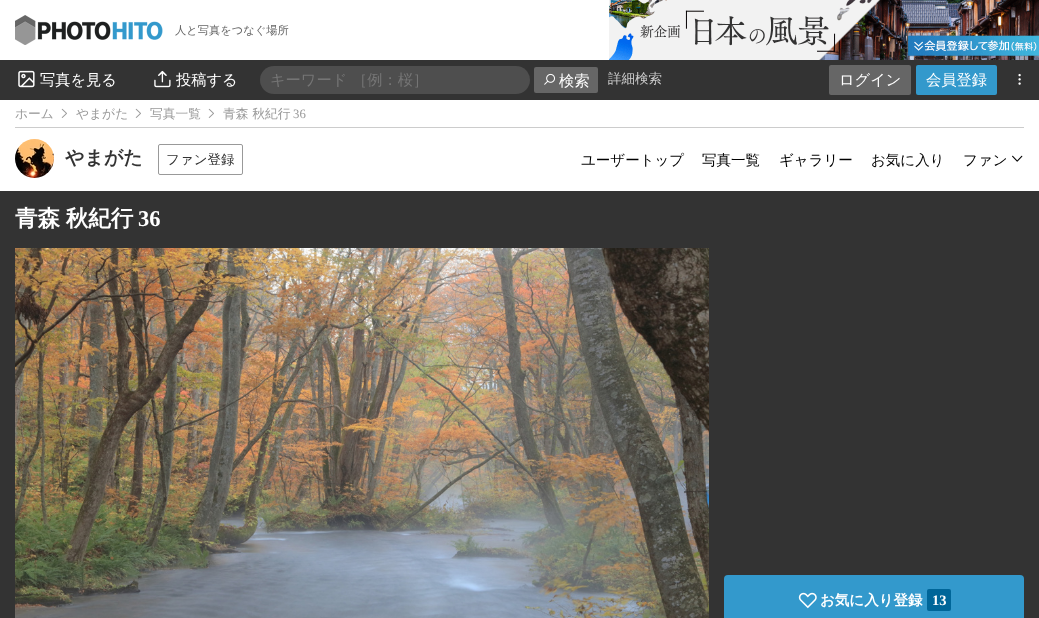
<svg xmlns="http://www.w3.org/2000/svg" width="1039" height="618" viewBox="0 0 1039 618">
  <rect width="100%" height="100%" fill="#fff"/>
  <image x="15" y="15" width="148" height="30" href="img/1.png"/>
  <image x="609" y="0" width="430" height="60" href="img/2.png"/>
  <path d="M0 60h1039v40H0z" fill="#333"/>
  <image x="18" y="70" width="17" height="18" href="img/3.png"/>
  <image x="154" y="70" width="17" height="18" href="img/4.png"/>
  <rect x="260" y="66" width="270" height="28" rx="14" fill="#4e4e4e"/>
  <rect x="534" y="67" width="64" height="26" rx="2" fill="#666"/>
  <image x="544" y="73" width="11" height="12" href="img/5.png"/>
  <rect x="829" y="65" width="82" height="30" rx="2" fill="#666"/>
  <rect x="916" y="65" width="81" height="30" rx="2" fill="#39c"/>
  <image x="1018" y="73" width="3" height="12" href="img/6.png"/>
  <path d="M15 127h1009v1H15z" fill="#ccc"/>
  <image x="61" y="108" width="6" height="10" href="img/7.png"/>
  <image x="135" y="108" width="6" height="10" href="img/7.png"/>
  <image x="208" y="108" width="6" height="10" href="img/7.png"/>
  <image x="15" y="139" width="39" height="39" href="img/8.png"/>
  <rect x="158.5" y="144.5" width="84" height="30" rx="1.5" fill="none" stroke="#999"/>
  <image x="1012" y="155" width="11" height="7" href="img/9.png"/>
  <path d="M0 191h1039v427H0z" fill="#333"/>
  <image x="15" y="248" width="694" height="370" href="img/10.png"/>
  <rect x="724" y="575" width="300" height="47" rx="4" fill="#39c"/>
  <image x="798" y="592" width="19" height="17" href="img/11.png"/>
  <rect x="927" y="589" width="24" height="22" rx="2" fill="#069"/>
  <text x="175" y="34" font-family="WenQuanYi Zen Hei" font-size="11.25" font-weight="500" fill="#666">人と写真をつなぐ場所</text>
  <g font-family="WenQuanYi Zen Hei" font-size="15.25" font-weight="500" fill="#fff">
    <text x="40" y="85">写真を見る</text>
    <text x="176" y="85">投稿する</text>
  </g>
  <text x="270" y="85" font-family="WenQuanYi Zen Hei" font-size="15.25" font-weight="500" fill="#757575">キーワード ［例：桜］</text>
  <text x="559" y="86" font-family="WenQuanYi Zen Hei" font-size="15.25" font-weight="500" fill="#fff">検索</text>
  <text x="608" y="83" font-family="WenQuanYi Zen Hei" font-size="13.5" font-weight="500" fill="#ccc">詳細検索</text>
  <g font-family="WenQuanYi Zen Hei" font-size="15.25" font-weight="500" fill="#fff">
    <text x="839" y="85">ログイン</text>
    <text x="926" y="85">会員登録</text>
  </g>
  <g font-family="WenQuanYi Zen Hei" font-size="12.75" font-weight="500" fill="#999">
    <text x="15" y="118">ホーム</text>
    <text x="76" y="118">やまがた</text>
    <text x="150" y="118">写真一覧</text>
    <text x="223" y="118">青森 秋紀行</text>
  </g>
  <text x="293" y="118" font-family="Liberation Serif" font-size="12.75" fill="#999">36</text>
  <text x="65" y="164" font-family="WenQuanYi Zen Hei" font-size="19" font-weight="bold" fill="#333">やまがた</text>
  <text x="166" y="164" font-family="WenQuanYi Zen Hei" font-size="13.5" font-weight="500" fill="#333">ファン登録</text>
  <g font-family="WenQuanYi Zen Hei" font-size="14.5" font-weight="500" fill="#000">
    <text x="581" y="165">ユーザートップ</text>
    <text x="702" y="165">写真一覧</text>
    <text x="779" y="165">ギャラリー</text>
    <text x="871" y="165">お気に入り</text>
    <text x="963" y="165">ファン</text>
  </g>
  <text x="15" y="226" word-spacing="-1" font-family="WenQuanYi Zen Hei" font-size="22.5" font-weight="bold" fill="#fff">青森 秋紀行</text>
  <text x="138" y="226" font-family="Liberation Serif" font-size="22.5" font-weight="bold" fill="#fff">36</text>
  <text x="820" y="605" font-family="WenQuanYi Zen Hei" font-size="14.5" font-weight="bold" fill="#fff">お気に入り登録</text>
  <text x="932" y="605" font-family="Liberation Serif" font-size="14.5" font-weight="bold" fill="#fff">13</text>
</svg>
